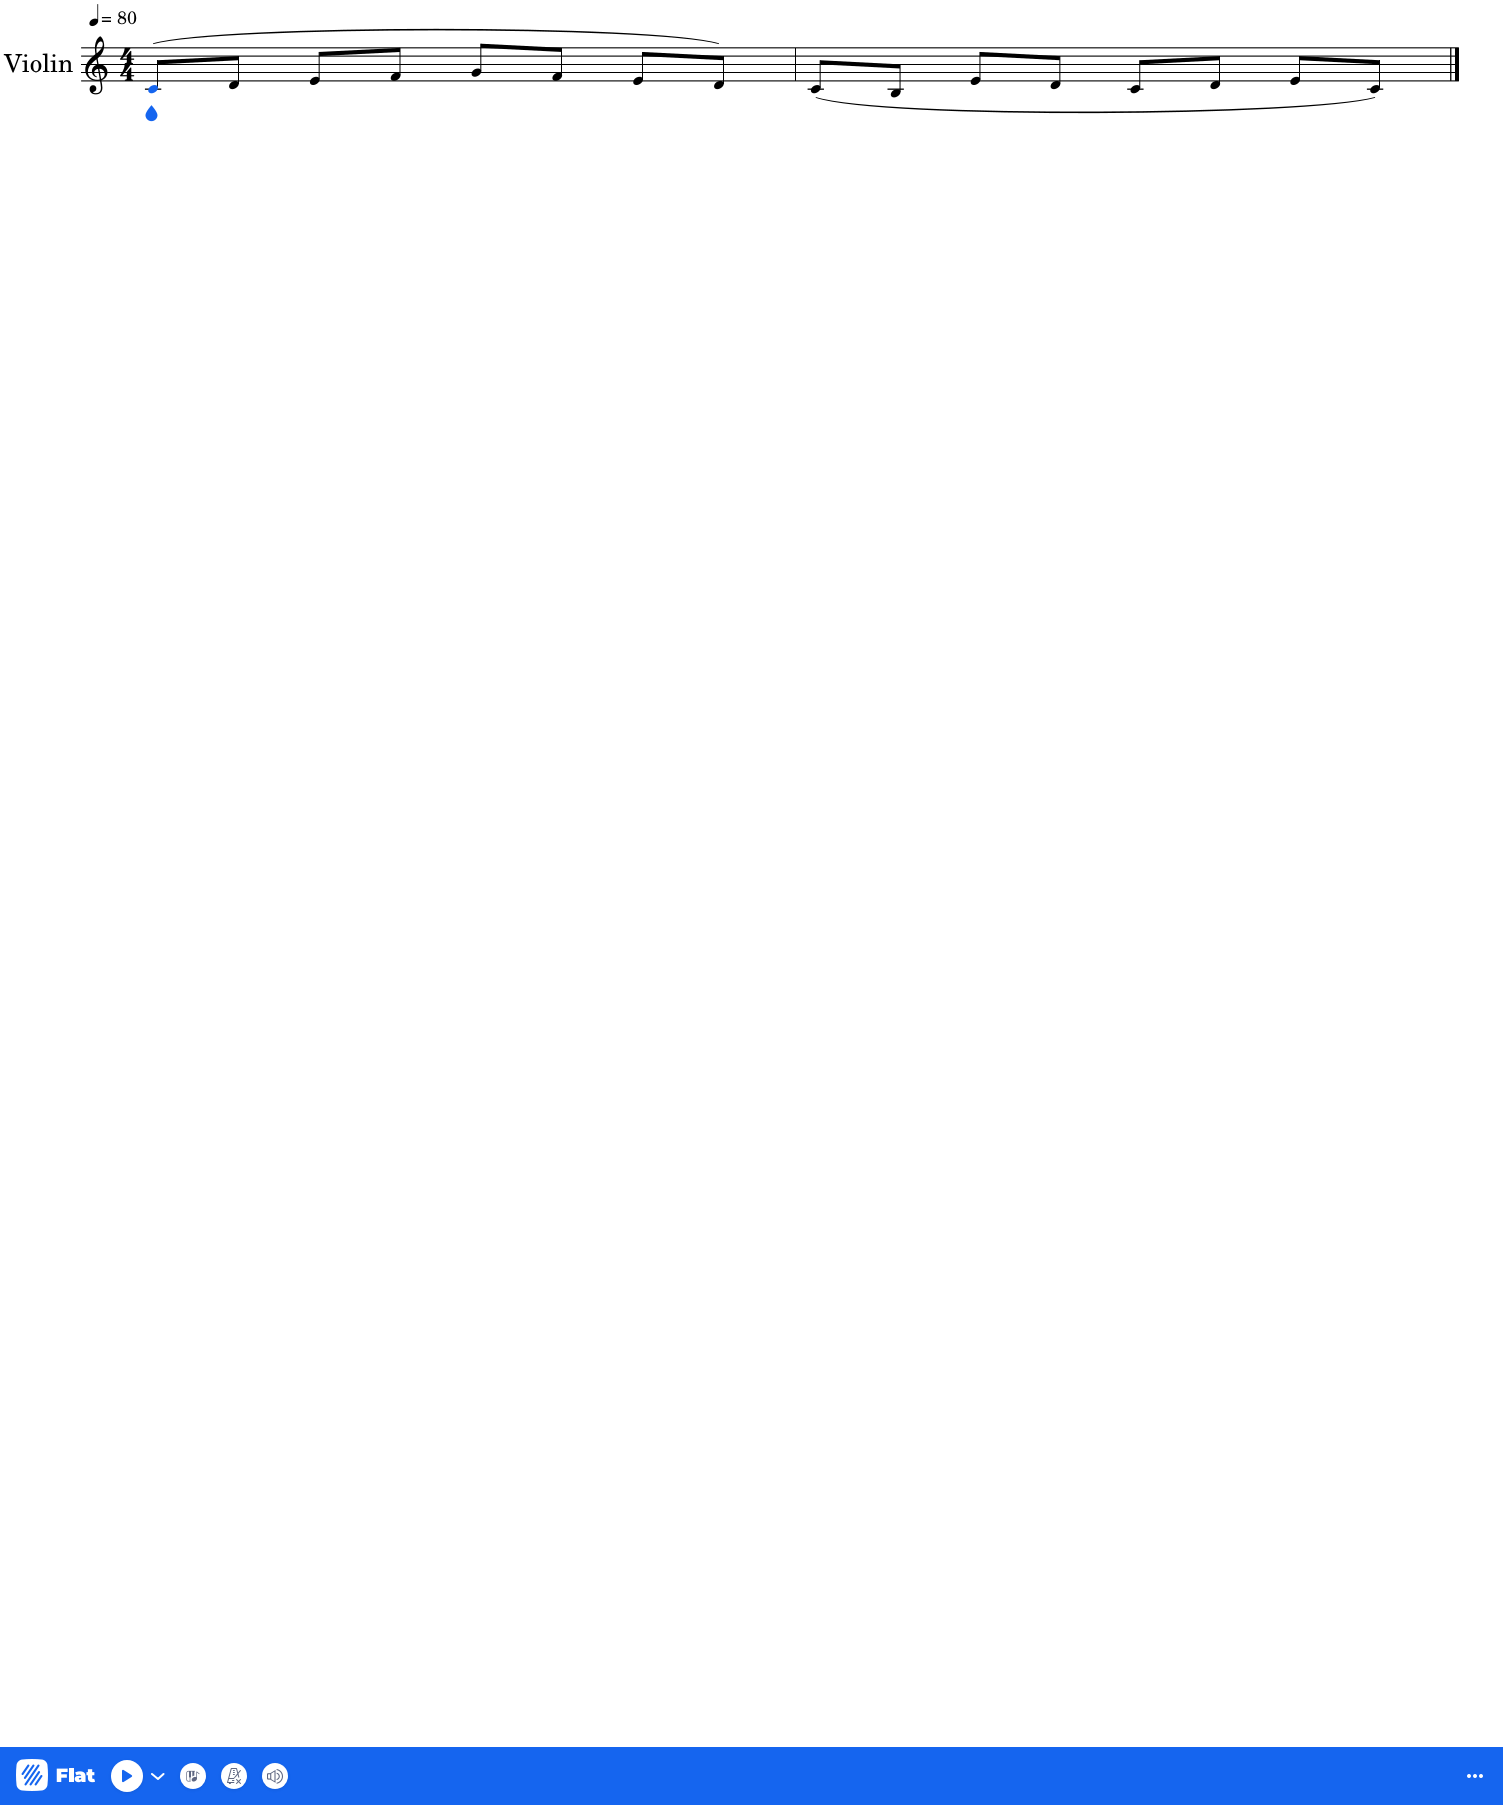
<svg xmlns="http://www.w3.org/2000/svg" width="1503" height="1805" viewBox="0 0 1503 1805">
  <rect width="100%" height="100%" fill="#fff"/>
  <image x="81" y="4" width="1378" height="118" href="img/1.png"/>
  <path d="M0 1747h1503v58H0z" fill="#1565ef"/>
  <image x="16" y="1759" width="79" height="32" href="img/2.png"/>
  <rect x="111" y="1761" width="32" height="32" rx="16" fill="#00000014" filter="blur(1.5px)"/>
  <circle cx="127" cy="1776" r="16" fill="#fff"/>
  <image x="122" y="1769" width="11" height="14" href="img/3.png"/>
  <path d="M152 1774L158 1779L163.5 1774" fill="none" stroke="#fff" stroke-width="2" stroke-linecap="round" stroke-linejoin="round"/>
  <rect x="180" y="1764" width="26" height="26" rx="13" fill="#00000014" filter="blur(1.5px)"/>
  <circle cx="193" cy="1776" r="13" fill="#fff"/>
  <image x="186" y="1770" width="14" height="12" href="img/4.png"/>
  <rect x="221" y="1764" width="26" height="26" rx="13" fill="#00000014" filter="blur(1.5px)"/>
  <circle cx="234" cy="1776" r="13" fill="#fff"/>
  <image x="227" y="1768" width="14" height="16" href="img/5.png"/>
  <rect x="262" y="1764" width="26" height="26" rx="13" fill="#00000014" filter="blur(1.5px)"/>
  <circle cx="275" cy="1776" r="13" fill="#fff"/>
  <image x="267" y="1769" width="16" height="15" href="img/6.png"/>
  <image x="1467" y="1774" width="16" height="4" href="img/7.png"/>
  <text x="101" y="24" font-family="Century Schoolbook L" font-size="18" fill="#000">= 80</text>
  <text x="4" y="72" font-family="Century Schoolbook L" font-size="25" fill="#000">Violin</text>
</svg>
